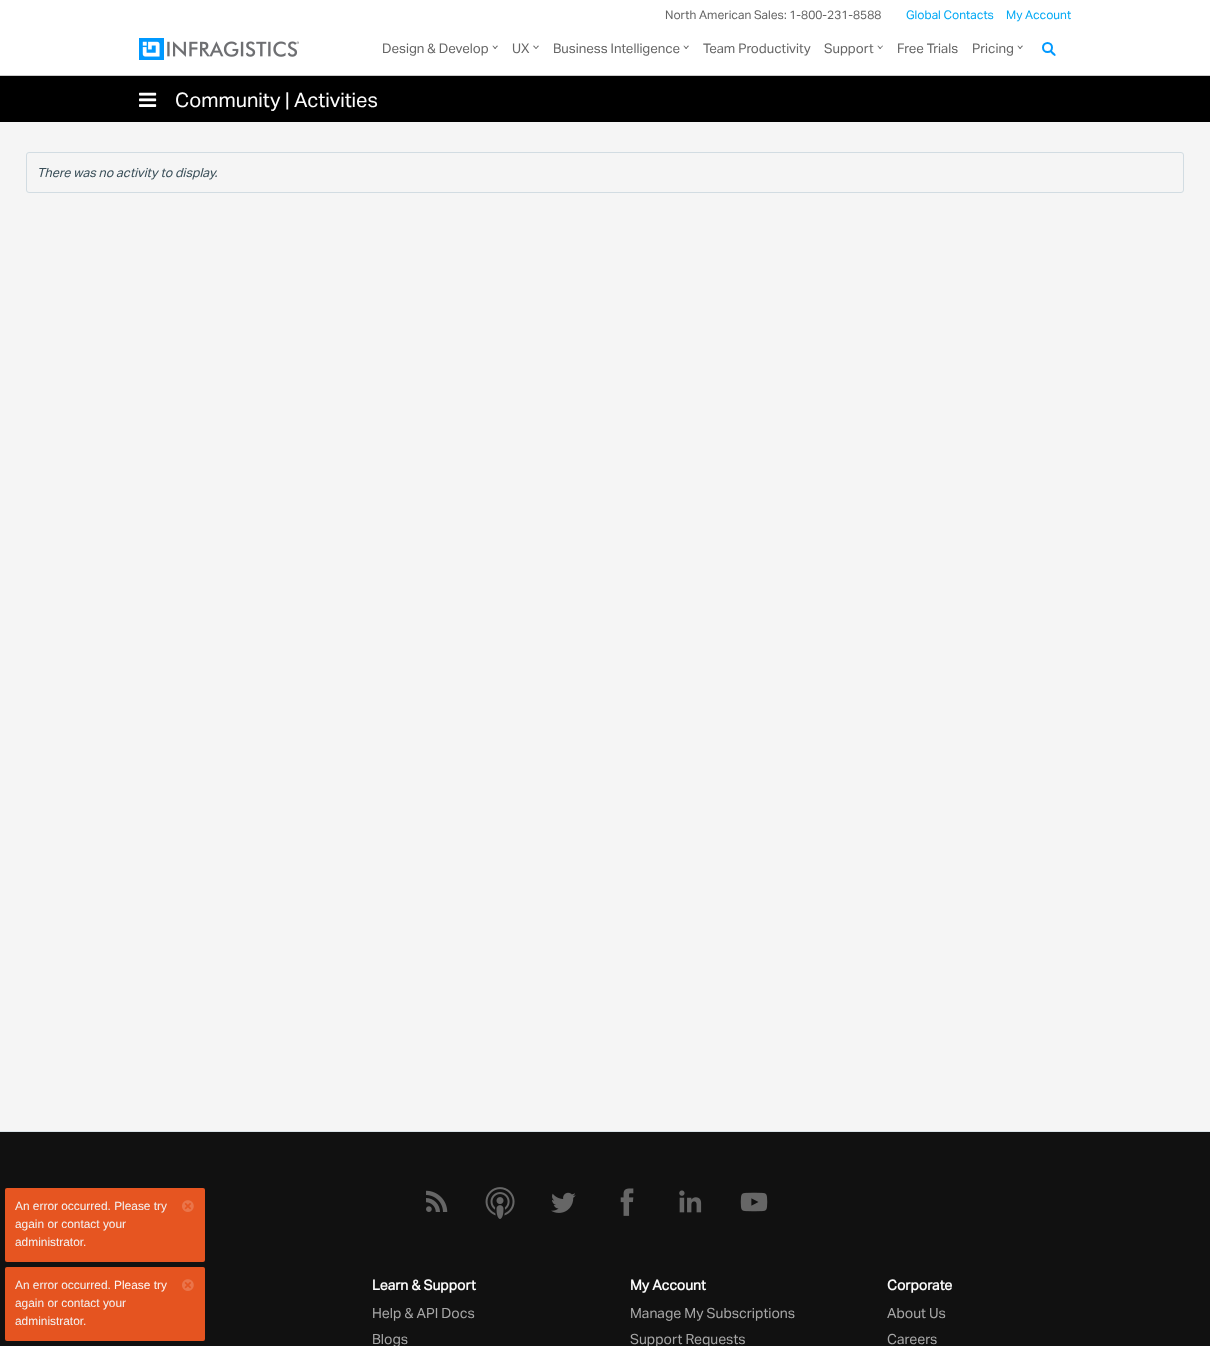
<svg xmlns="http://www.w3.org/2000/svg" width="1210" height="1346" viewBox="0 0 1210 1346">
  <rect width="100%" height="100%" fill="#dbe4e8"/>
  <path d="M0 0h1210v75H0z" fill="#fff"/>
  <path d="M0 75h1210v1H0z" fill="#ccc"/>
  <image x="139" y="38" width="160" height="22" href="img/1.png"/>
  <path d="M495 49L492.5 46L493 45.5L496 48.5Z" fill="#666"/>
  <path d="M495 49L494.5 48.5L497 45.5L498 46Z" fill="#666"/>
  <path d="M536 49L533 46L534 45.5L536.5 48.5Z" fill="#666"/>
  <path d="M536 49L535.5 48.5L538 45.5L539 46Z" fill="#666"/>
  <path d="M686 49L683.5 46L684 45.5L687 48.5Z" fill="#666"/>
  <path d="M686 49L685.5 48.5L688 45.5L689 46Z" fill="#666"/>
  <path d="M880 49L877.5 46L878 45.5L881 48.5Z" fill="#666"/>
  <path d="M880 49L879.5 48.5L882.5 45.5L883 46Z" fill="#666"/>
  <path d="M1020 49L1017.5 46L1018 45.5L1021 48.5Z" fill="#666"/>
  <path d="M1020 49L1019.5 48.5L1022 45.5L1023 46Z" fill="#666"/>
  <path d="M1046.5 45L1052.5 51.5C1053 52 1056.5 54.5 1055.5 55.5C1055 57 1053 54.5 1052.5 54.5L1045 46.5C1044 45.5 1045.5 44.5 1046.5 45Z" fill="#09f"/>
  <circle cx="1047.5" cy="47.5" r="4.5" fill="#fff" stroke="#09f" stroke-width="2"/>
  <path d="M0 76h1210v46H0z" fill="#000"/>
  <image x="139" y="92" width="18" height="15" href="img/2.png"/>
  <path d="M0 122h1210v1009H0z" fill="#f5f5f5"/>
  <rect x="26.5" y="152.5" width="1157" height="40" rx="2.5" fill="none" stroke="#d2dce2"/>
  <path d="M0 1132h1210v214H0z" fill="#111"/>
  <image x="426" y="1190" width="22" height="22" href="img/3.png"/>
  <image x="485" y="1187" width="30" height="32" href="img/4.png"/>
  <image x="551" y="1192" width="25" height="21" href="img/5.png"/>
  <image x="620" y="1188" width="14" height="28" href="img/6.png"/>
  <image x="679" y="1190" width="23" height="23" href="img/7.png"/>
  <image x="740" y="1192" width="28" height="20" href="img/8.png"/>
  <rect x="5" y="1188" width="200" height="74" rx="2" fill="#e65521"/>
  <image x="182" y="1200" width="12" height="12" href="img/9.png"/>
  <rect x="5" y="1267" width="200" height="74" rx="2" fill="#f15922f2"/>
  <image x="182" y="1279" width="12" height="12" href="img/10.png"/>
  <text x="665" y="19" font-family="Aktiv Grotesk" font-size="12" fill="#666">North American Sales: 1-800-231-8588</text>
  <g font-family="Aktiv Grotesk" font-size="12" fill="#03a9f4">
    <text x="906" y="19">Global Contacts</text>
    <text x="1006" y="19">My Account</text>
  </g>
  <g font-family="Aktiv Grotesk" font-size="13.25" fill="#666">
    <text x="382" y="53">Design &amp; Develop</text>
    <text x="512" y="53">UX</text>
    <text x="553" y="53">Business Intelligence</text>
    <text x="703" y="53">Team Productivity</text>
    <text x="824" y="53">Support</text>
    <text x="897" y="53">Free Trials</text>
    <text x="972" y="53">Pricing</text>
  </g>
  <text x="175" y="107" font-family="Aktiv Grotesk" font-size="20" fill="#fcfcfc">Community | Activities</text>
  <text x="37" y="177" font-family="Aktiv Grotesk" font-size="12.6" font-style="italic" fill="#394e58">There was no activity to display.</text>
  <text x="372" y="1290" font-family="Aktiv Grotesk" font-size="14" font-weight="bold" fill="#fcfcfc">Learn &amp; Support</text>
  <g font-family="Aktiv Grotesk" font-size="14" fill="#a7a7a7">
    <text x="372" y="1318">Help &amp; API Docs</text>
    <text x="372" y="1344">Blogs</text>
  </g>
  <text x="630" y="1290" font-family="Aktiv Grotesk" font-size="14" font-weight="bold" fill="#fcfcfc">My Account</text>
  <g font-family="Aktiv Grotesk" font-size="14" fill="#a7a7a7">
    <text x="630" y="1318">Manage My Subscriptions</text>
    <text x="630" y="1344">Support Requests</text>
  </g>
  <text x="887" y="1290" font-family="Aktiv Grotesk" font-size="14" font-weight="bold" fill="#fcfcfc">Corporate</text>
  <g font-family="Aktiv Grotesk" font-size="14" fill="#a7a7a7">
    <text x="887" y="1318">About Us</text>
    <text x="887" y="1344">Careers</text>
  </g>
  <g font-family="Liberation Sans" font-size="11.9" fill="#f3f3f3">
    <text x="15" y="1210">An error occurred. Please try</text>
    <text x="15" y="1228">again or contact your</text>
    <text x="15" y="1246">administrator.</text>
    <text x="15" y="1289">An error occurred.</text>
  </g>
  <text x="114" y="1289" font-family="Liberation Sans" font-size="11.9" fill="#fef7f4">Please try</text>
  <g font-family="Liberation Sans" font-size="11.9" fill="#f3f3f3">
    <text x="15" y="1307">again or contact your</text>
    <text x="15" y="1325">administrator.</text>
  </g>
</svg>
